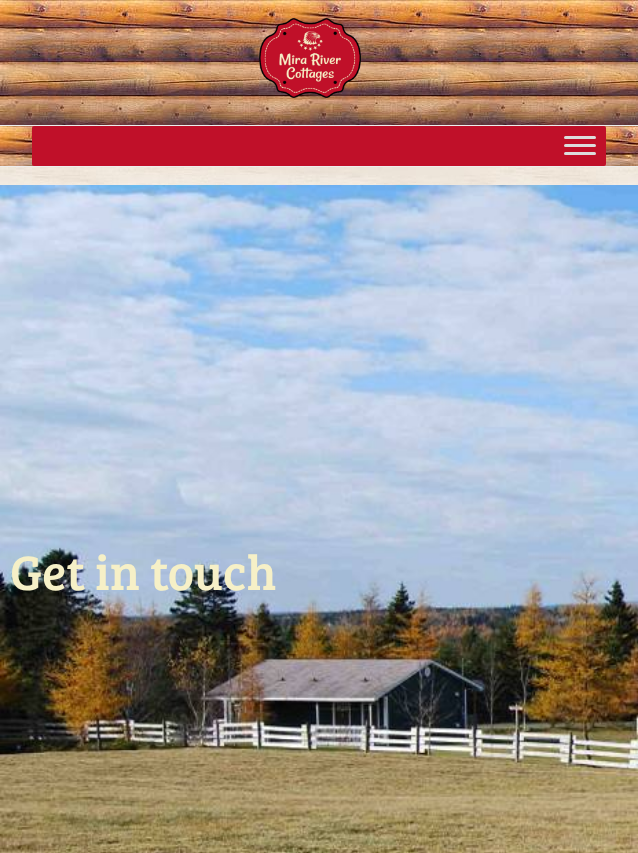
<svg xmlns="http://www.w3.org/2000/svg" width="638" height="853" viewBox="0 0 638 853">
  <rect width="100%" height="100%" fill="#fff"/>
  <image x="0" y="0" width="638" height="125" href="img/1.png"/>
  <image x="259" y="18" width="102" height="80" href="img/2.png"/>
  <image x="0" y="126" width="638" height="40" href="img/3.png"/>
  <path d="M0 125h638v1H0z" fill="#eee"/>
  <path d="M0 166h638v1H0z" fill="#eee"/>
  <rect x="32" y="126" width="574" height="40" rx="2" fill="#c01029"/>
  <rect x="564" y="136" width="32" height="3" rx="1.5" fill="#ddd"/>
  <rect x="564" y="144" width="32" height="3" rx="1.5" fill="#ddd"/>
  <rect x="564" y="152" width="32" height="3" rx="1.5" fill="#ddd"/>
  <image x="0" y="167" width="638" height="18" href="img/4.png"/>
  <image x="0" y="185" width="638" height="668" href="img/5.png"/>
  <text x="10" y="590" font-family="Bree Serif" font-size="50" fill="#f6f0c7">Get in touch</text>
</svg>
